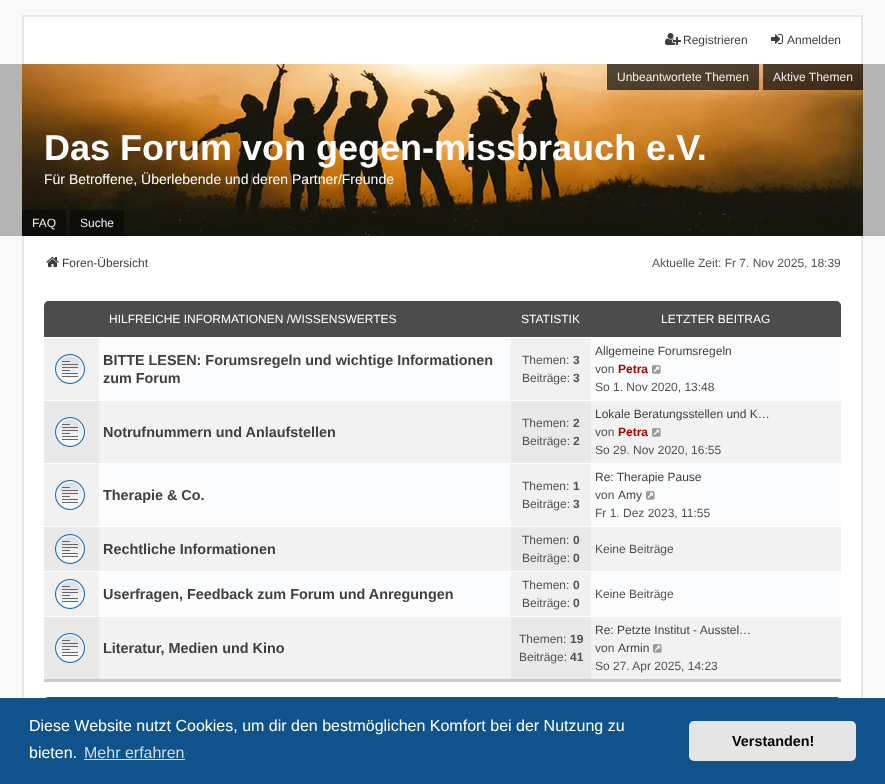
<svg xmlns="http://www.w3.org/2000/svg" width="885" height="784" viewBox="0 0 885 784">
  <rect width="100%" height="100%" fill="#f9f9f9"/>
  <path d="M24 17h837v47H24z" fill="#fff"/>
  <path d="M22 15h841v2H22z" fill="#e7e7e7"/>
  <path d="M861 15h2v49H861z" fill="#e7e7e7"/>
  <path d="M22 15h2v49H22z" fill="#e7e7e7"/>
  <image x="665" y="33" width="16" height="12" href="img/1.png"/>
  <image x="771" y="34" width="12" height="10" href="img/2.png"/>
  <path d="M0 64h885v172H0z" fill="#b4b4b4"/>
  <image x="22" y="64" width="841" height="172" href="img/3.png"/>
  <path d="M607 64h152v26H607z" fill="#0a0a0ab3"/>
  <path d="M763 64h100v26H763z" fill="#0a0a0ab3"/>
  <path d="M22 210h44v26H22z" fill="#0a0a0ab3"/>
  <path d="M70 210h54v26H70z" fill="#0a0a0ab3"/>
  <path d="M24 236h837v462H24z" fill="#fff"/>
  <path d="M861 236h2v462H861z" fill="#e7e7e7"/>
  <path d="M22 236h2v462H22z" fill="#e7e7e7"/>
  <image x="46" y="257" width="13" height="10" href="img/4.png"/>
  <path d="M49 301H836C839 301 841 303 841 306V682H44V306C44 303 46 301 49 301Z" fill="#4c4c4c"/>
  <path d="M44 679h797v3H44z" fill="#cacaca"/>
  <path d="M99 338h742v278H99z" fill="#fafcfe"/>
  <path d="M44 337h797v1H44z" fill="#fff"/>
  <path d="M44 338h55v62H44z" fill="#f1f1f1"/>
  <image x="55" y="354" width="30" height="30" href="img/5.png"/>
  <path d="M511 338h80v62H511z" fill="#f1f1f1"/>
  <image x="652" y="365" width="9" height="9" href="img/6.png"/>
  <path d="M99 401h742v62H99z" fill="#f2f2f2"/>
  <path d="M44 400h797v1H44z" fill="#fff"/>
  <path d="M44 401h55v62H44z" fill="#e9e9e9"/>
  <image x="55" y="417" width="30" height="30" href="img/7.png"/>
  <path d="M511 401h80v62H511z" fill="#e9e9e9"/>
  <image x="652" y="428" width="9" height="9" href="img/8.png"/>
  <path d="M44 463h797v1H44z" fill="#fff"/>
  <path d="M44 464h55v62H44z" fill="#f1f1f1"/>
  <image x="55" y="480" width="30" height="30" href="img/5.png"/>
  <path d="M511 464h80v62H511z" fill="#f1f1f1"/>
  <image x="646" y="491" width="9" height="9" href="img/6.png"/>
  <path d="M99 527h742v44H99z" fill="#f2f2f2"/>
  <path d="M44 526h797v1H44z" fill="#fff"/>
  <path d="M44 527h55v44H44z" fill="#e9e9e9"/>
  <image x="55" y="534" width="30" height="30" href="img/7.png"/>
  <path d="M511 527h80v44H511z" fill="#e9e9e9"/>
  <path d="M44 571h797v1H44z" fill="#fff"/>
  <path d="M44 572h55v44H44z" fill="#f1f1f1"/>
  <image x="55" y="579" width="30" height="30" href="img/5.png"/>
  <path d="M511 572h80v44H511z" fill="#f1f1f1"/>
  <path d="M99 617h742v62H99z" fill="#f2f2f2"/>
  <path d="M44 616h797v1H44z" fill="#fff"/>
  <path d="M44 617h55v62H44z" fill="#e9e9e9"/>
  <image x="55" y="633" width="30" height="30" href="img/7.png"/>
  <path d="M511 617h80v62H511z" fill="#e9e9e9"/>
  <image x="653" y="644" width="9" height="9" href="img/8.png"/>
  <path d="M49 697H836C839 697 841 699 841 702V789H44V702C44 699 46 697 49 697Z" fill="#4c4c4c"/>
  <path d="M0 698h885v86H0z" fill="#0f538a"/>
  <path d="M84 759h101v1H84z" fill="#cfdde8"/>
  <rect x="689" y="721" width="167" height="40" rx="5" fill="#e5e5e5"/>
  <g font-family="Liberation Sans" font-size="12" fill="#3f3f3f">
    <text x="683" y="44">Registrieren</text>
    <text x="787" y="44">Anmelden</text>
  </g>
  <g font-family="Liberation Sans" font-size="12" fill="#eee">
    <text x="617" y="81">Unbeantwortete Themen</text>
    <text x="773" y="81">Aktive Themen</text>
  </g>
  <text x="44" y="160" font-family="Liberation Sans" font-size="36" font-weight="bold" fill="#fff">Das Forum von gegen-missbrauch e.V.</text>
  <text x="44" y="184" font-family="Liberation Sans" font-size="14" fill="#fff">Für Betroffene, Überlebende und deren Partner/Freunde</text>
  <g font-family="Liberation Sans" font-size="12" fill="#eee">
    <text x="32" y="227">FAQ</text>
    <text x="80" y="227">Suche</text>
  </g>
  <text x="62" y="267" font-family="Liberation Sans" font-size="12" fill="#3f3f3f">Foren-Übersicht</text>
  <text x="652" y="267" font-family="Liberation Sans" font-size="12" fill="#525252">Aktuelle Zeit: Fr 7. Nov 2025, 18:39</text>
  <g font-family="Liberation Sans" font-size="12" fill="#fff">
    <text x="109" y="323">HILFREICHE INFORMATIONEN /WISSENSWERTES</text>
    <text x="521" y="323">STATISTIK</text>
    <text x="661" y="323">LETZTER BEITRAG</text>
  </g>
  <g font-family="Liberation Sans" font-size="14.4" font-weight="bold" fill="#3f3f3f">
    <text x="103" y="365">BITTE LESEN: Forumsregeln und wichtige Informationen</text>
    <text x="103" y="383">zum Forum</text>
  </g>
  <text x="522" y="364" font-family="Liberation Sans" font-size="12" fill="#525252">Themen:</text>
  <text x="573" y="364" font-family="Liberation Sans" font-size="12" font-weight="bold" fill="#525252">3</text>
  <text x="522" y="382" font-family="Liberation Sans" font-size="12" fill="#525252">Beiträge:</text>
  <text x="573" y="382" font-family="Liberation Sans" font-size="12" font-weight="bold" fill="#525252">3</text>
  <text x="595" y="355" font-family="Liberation Sans" font-size="12" fill="#3f3f3f">Allgemeine Forumsregeln</text>
  <text x="595" y="373" font-family="Liberation Sans" font-size="12" fill="#525252">von</text>
  <text x="618" y="373" font-family="Liberation Sans" font-size="12" font-weight="bold" fill="#a00">Petra</text>
  <text x="595" y="391" font-family="Liberation Sans" font-size="12" fill="#525252">So 1. Nov 2020, 13:48</text>
  <text x="103" y="437" font-family="Liberation Sans" font-size="14.4" font-weight="bold" fill="#3f3f3f">Notrufnummern und Anlaufstellen</text>
  <text x="522" y="427" font-family="Liberation Sans" font-size="12" fill="#525252">Themen:</text>
  <text x="573" y="427" font-family="Liberation Sans" font-size="12" font-weight="bold" fill="#525252">2</text>
  <text x="522" y="445" font-family="Liberation Sans" font-size="12" fill="#525252">Beiträge:</text>
  <text x="573" y="445" font-family="Liberation Sans" font-size="12" font-weight="bold" fill="#525252">2</text>
  <text x="595" y="418" font-family="Liberation Sans" font-size="12" fill="#3f3f3f">Lokale Beratungsstellen und K…</text>
  <text x="595" y="436" font-family="Liberation Sans" font-size="12" fill="#525252">von</text>
  <text x="618" y="436" font-family="Liberation Sans" font-size="12" font-weight="bold" fill="#a00">Petra</text>
  <text x="595" y="454" font-family="Liberation Sans" font-size="12" fill="#525252">So 29. Nov 2020, 16:55</text>
  <text x="103" y="500" font-family="Liberation Sans" font-size="14.4" font-weight="bold" fill="#3f3f3f">Therapie &amp; Co.</text>
  <text x="522" y="490" font-family="Liberation Sans" font-size="12" fill="#525252">Themen:</text>
  <text x="573" y="490" font-family="Liberation Sans" font-size="12" font-weight="bold" fill="#525252">1</text>
  <text x="522" y="508" font-family="Liberation Sans" font-size="12" fill="#525252">Beiträge:</text>
  <text x="573" y="508" font-family="Liberation Sans" font-size="12" font-weight="bold" fill="#525252">3</text>
  <text x="595" y="481" font-family="Liberation Sans" font-size="12" fill="#3f3f3f">Re: Therapie Pause</text>
  <text x="595" y="499" font-family="Liberation Sans" font-size="12" fill="#525252">von</text>
  <text x="618" y="499" font-family="Liberation Sans" font-size="12" fill="#3f3f3f">Amy</text>
  <text x="595" y="517" font-family="Liberation Sans" font-size="12" fill="#525252">Fr 1. Dez 2023, 11:55</text>
  <text x="103" y="554" font-family="Liberation Sans" font-size="14.4" font-weight="bold" fill="#3f3f3f">Rechtliche Informationen</text>
  <text x="522" y="544" font-family="Liberation Sans" font-size="12" fill="#525252">Themen:</text>
  <text x="573" y="544" font-family="Liberation Sans" font-size="12" font-weight="bold" fill="#525252">0</text>
  <text x="522" y="562" font-family="Liberation Sans" font-size="12" fill="#525252">Beiträge:</text>
  <text x="573" y="562" font-family="Liberation Sans" font-size="12" font-weight="bold" fill="#525252">0</text>
  <text x="595" y="553" font-family="Liberation Sans" font-size="12" fill="#525252">Keine Beiträge</text>
  <text x="103" y="599" font-family="Liberation Sans" font-size="14.4" font-weight="bold" fill="#3f3f3f">Userfragen, Feedback zum Forum und Anregungen</text>
  <text x="522" y="589" font-family="Liberation Sans" font-size="12" fill="#525252">Themen:</text>
  <text x="573" y="589" font-family="Liberation Sans" font-size="12" font-weight="bold" fill="#525252">0</text>
  <text x="522" y="607" font-family="Liberation Sans" font-size="12" fill="#525252">Beiträge:</text>
  <text x="573" y="607" font-family="Liberation Sans" font-size="12" font-weight="bold" fill="#525252">0</text>
  <text x="595" y="598" font-family="Liberation Sans" font-size="12" fill="#525252">Keine Beiträge</text>
  <text x="103" y="653" font-family="Liberation Sans" font-size="14.4" font-weight="bold" fill="#3f3f3f">Literatur, Medien und Kino</text>
  <text x="519" y="643" font-family="Liberation Sans" font-size="12" fill="#525252">Themen:</text>
  <text x="570" y="643" font-family="Liberation Sans" font-size="12" font-weight="bold" fill="#525252">19</text>
  <text x="519" y="661" font-family="Liberation Sans" font-size="12" fill="#525252">Beiträge:</text>
  <text x="570" y="661" font-family="Liberation Sans" font-size="12" font-weight="bold" fill="#525252">41</text>
  <text x="595" y="634" font-family="Liberation Sans" font-size="12" fill="#3f3f3f">Re: Petzte Institut - Ausstel…</text>
  <text x="595" y="652" font-family="Liberation Sans" font-size="12" fill="#525252">von</text>
  <text x="618" y="652" font-family="Liberation Sans" font-size="12" fill="#3f3f3f">Armin</text>
  <text x="595" y="670" font-family="Liberation Sans" font-size="12" fill="#525252">So 27. Apr 2025, 14:23</text>
  <g font-family="Liberation Sans" font-size="16" fill="#fff">
    <text x="29" y="731">Diese Website nutzt Cookies, um dir den bestmöglichen Komfort bei der Nutzung zu</text>
    <text x="29" y="758">bieten.</text>
  </g>
  <text x="84" y="758" font-family="Liberation Sans" font-size="16" fill="#cfdde8">Mehr erfahren</text>
  <text x="732" y="746" font-family="Liberation Sans" font-size="14.4" font-weight="bold" fill="#000">Verstanden!</text>
</svg>
